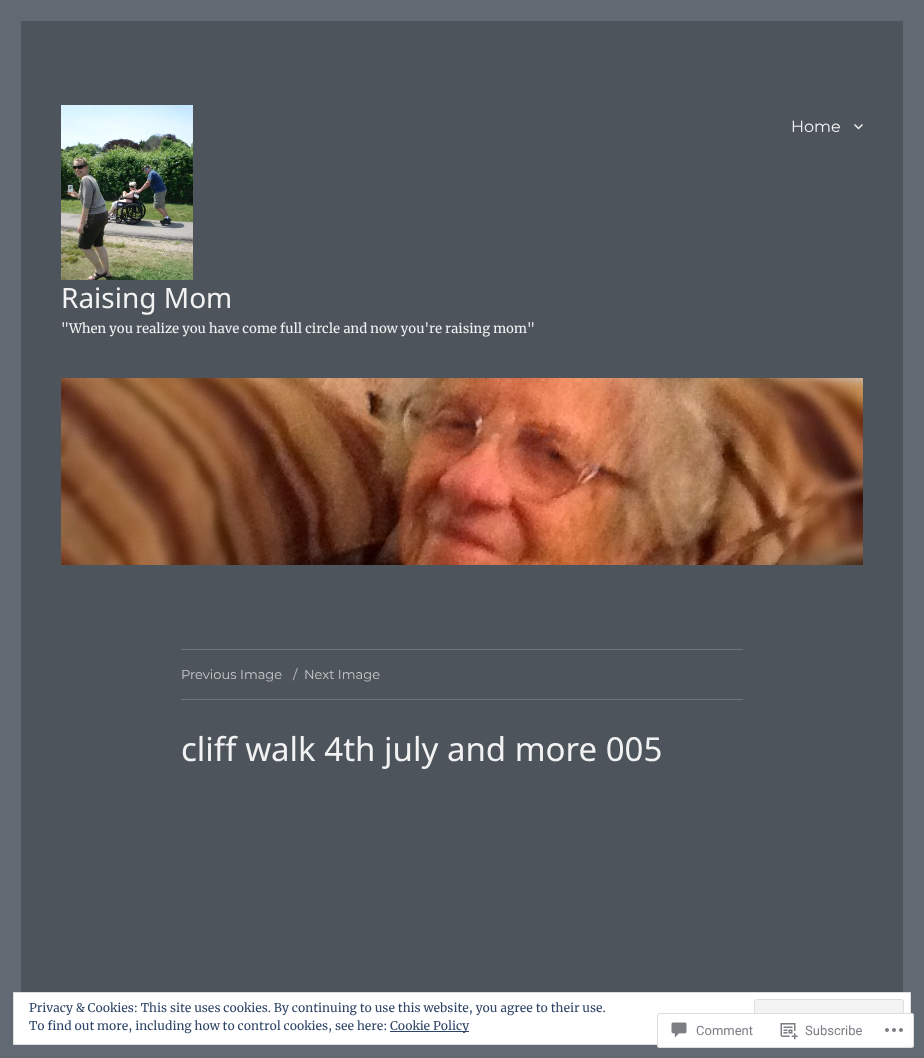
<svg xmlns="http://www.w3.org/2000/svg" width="924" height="1058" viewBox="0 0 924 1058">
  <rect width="100%" height="100%" fill="#616a73"/>
  <path d="M21 21h882v971H21z" fill="#4d545c"/>
  <image x="854" y="124" width="9" height="6" href="img/1.png"/>
  <image x="61" y="105" width="132" height="175" href="img/2.png"/>
  <image x="61" y="378" width="802" height="187" href="img/3.png"/>
  <path d="M181 649h562v1H181z" fill="#6e747a"/>
  <path d="M181 699h562v1H181z" fill="#6e747a"/>
  <path d="M13.5 992.5h897v52H13.5z" fill="#fff" stroke="#dedede"/>
  <rect x="754.5" y="999.5" width="149" height="38" rx="2.5" fill="#f3f3f3" stroke="#dedede"/>
  <path d="M390 1031h79v1H390z" fill="#2e4467"/>
  <rect x="657" y="1013" width="257" height="35" rx="3" fill="#fffffffa"/>
  <rect x="657.5" y="1013.5" width="256" height="34" rx="2.5" fill="none" stroke="#dcdcdefa"/>
  <image x="671" y="1022" width="16" height="16" href="img/4.png"/>
  <image x="780" y="1023" width="18" height="17" href="img/5.png"/>
  <image x="885" y="1028" width="18" height="4" href="img/6.png"/>
  <text x="791" y="132" font-family="Montserrat" font-size="16" font-weight="100" fill="#f2f2f2">Home</text>
  <text x="61" y="308" font-family="Noto Sans" font-size="28" fill="#f2f2f2">Raising Mom</text>
  <text x="61" y="333" font-family="Merriweather" font-size="13" fill="#f2f2f2">"When you realize you have come full circle and now you're raising mom"</text>
  <text x="181" y="679" font-family="Montserrat" font-size="13" font-weight="100" fill="#c7c7c7">Previous Image</text>
  <text x="293" y="679" font-family="Montserrat" font-size="13" font-weight="100" fill="#c1c3c5">/</text>
  <text x="304" y="679" font-family="Montserrat" font-size="13" font-weight="100" fill="#c7c7c7">Next Image</text>
  <text x="181" y="761" font-family="Noto Sans" font-size="33" fill="#f2f2f2">cliff walk 4th july and more 005</text>
  <g font-family="Merriweather" font-size="12" fill="#2e4467">
    <text x="29" y="1012">Privacy &amp; Cookies: This site uses cookies. By continuing to use this website, you agree to their use.</text>
    <text x="29" y="1030">To find out more, including how to control cookies, see here:</text>
    <text x="390" y="1030">Cookie Policy</text>
  </g>
  <g font-family="Roboto" font-size="13" fill="#7b7f85">
    <text x="696" y="1035">Comment</text>
    <text x="805" y="1035">Subscribe</text>
  </g>
</svg>
